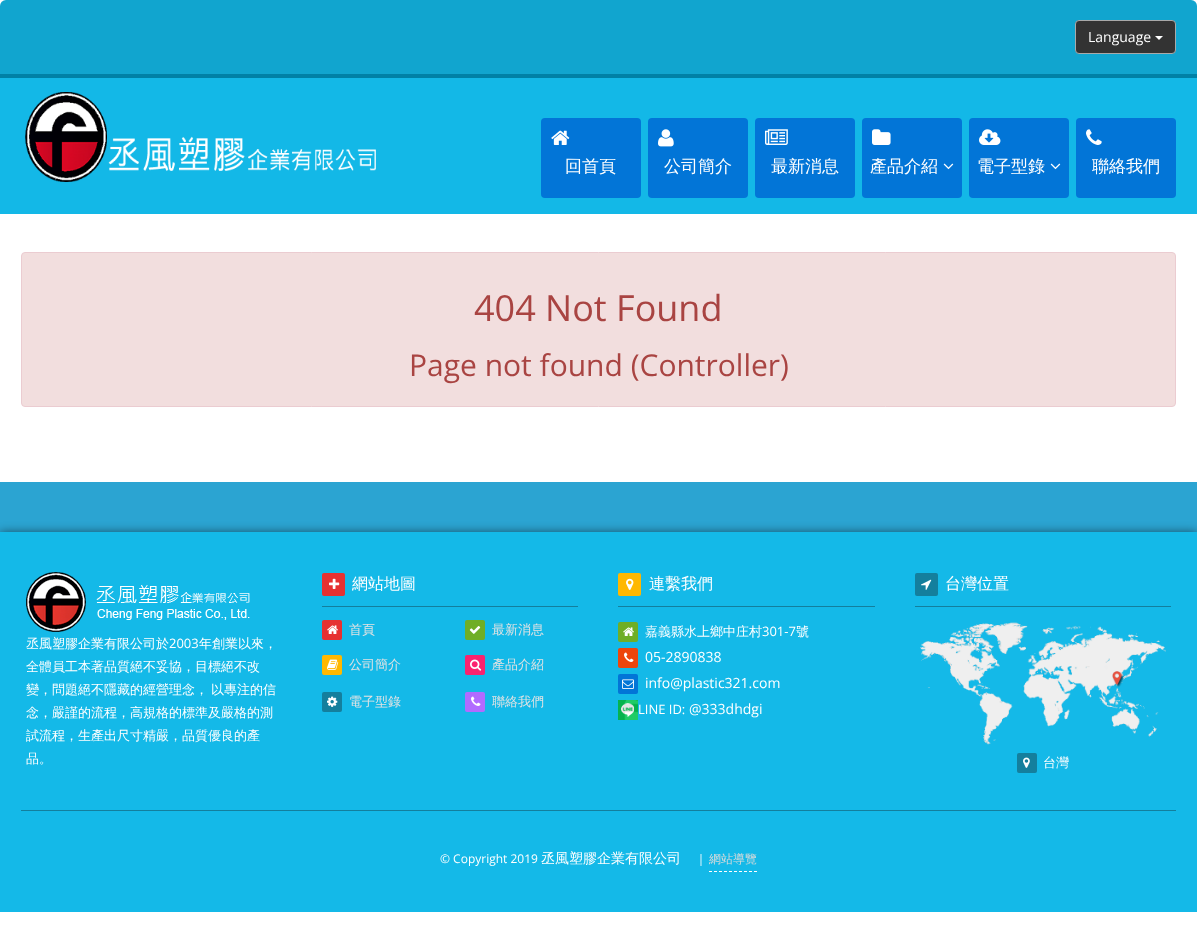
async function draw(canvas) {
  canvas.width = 1197
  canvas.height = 948
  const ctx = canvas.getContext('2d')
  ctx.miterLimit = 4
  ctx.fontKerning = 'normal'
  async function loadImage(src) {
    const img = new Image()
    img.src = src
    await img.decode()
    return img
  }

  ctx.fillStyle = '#fff'
  ctx.fillRect(0, 0, 1197, 948)
  ctx.fillStyle = '#11a5cf'
  ctx.beginPath()
  ctx.roundRect(0, 0, 1197, 78, [6, 6, 0, 0])
  ctx.fill()
  ctx.fillStyle = '#0081a6'
  ctx.fillRect(0, 74, 1197, 4)
  ctx.fillStyle = '#333'
  ctx.beginPath()
  ctx.roundRect(1075.5, 20.5, 100, 33, 3.5)
  ctx.fill()
  ctx.strokeStyle = '#a9a9a9'
  ctx.stroke()
  ctx.font = '14px Open Sans'
  ctx.fillStyle = '#fff'
  ctx.fillText('Language', 1088, 42)
  ctx.beginPath()
  ctx.moveTo(1155, 36)
  ctx.lineTo(1163, 36)
  ctx.lineTo(1159, 40)
  ctx.closePath()
  ctx.fill()
  ctx.fillStyle = '#13b8e7'
  ctx.fillRect(0, 78, 1197, 136)
  ctx.drawImage(await loadImage('image0.png'), 25, 92, 351, 90)
  ctx.fillStyle = '#0275d7'
  ctx.beginPath()
  ctx.roundRect(541, 118, 100, 80, 4)
  ctx.fill()
  ctx.drawImage(await loadImage('image1.png'), 551, 130, 19, 15)
  ctx.font = '500 17px WenQuanYi Zen Hei'
  ctx.fillStyle = '#fff'
  ctx.fillText('回首頁', 565, 172)
  ctx.fillStyle = '#0275d7'
  ctx.beginPath()
  ctx.roundRect(648, 118, 100, 80, 4)
  ctx.fill()
  ctx.drawImage(await loadImage('image2.png'), 658, 129, 16, 18)
  ctx.fillStyle = '#fff'
  ctx.fillText('公司簡介', 664, 172)
  ctx.fillStyle = '#0275d7'
  ctx.beginPath()
  ctx.roundRect(755, 118, 100, 80, 4)
  ctx.fill()
  ctx.drawImage(await loadImage('image3.png'), 765, 129, 23, 16)
  ctx.fillStyle = '#fff'
  ctx.fillText('最新消息', 771, 172)
  ctx.fillStyle = '#0275d7'
  ctx.beginPath()
  ctx.roundRect(862, 118, 100, 80, 4)
  ctx.fill()
  ctx.drawImage(await loadImage('image4.png'), 872, 129, 19, 16)
  ctx.fillStyle = '#fff'
  ctx.fillText('產品介紹', 870, 172)
  ctx.drawImage(await loadImage('image5.png'), 943, 163, 11, 7)
  ctx.fillStyle = '#0275d7'
  ctx.beginPath()
  ctx.roundRect(969, 118, 100, 80, 4)
  ctx.fill()
  ctx.drawImage(await loadImage('image6.png'), 979, 129, 22, 16)
  ctx.fillStyle = '#fff'
  ctx.fillText('電子型錄', 977, 172)
  ctx.drawImage(await loadImage('image5.png'), 1050, 163, 11, 7)
  ctx.fillStyle = '#0275d7'
  ctx.beginPath()
  ctx.roundRect(1076, 118, 100, 80, 4)
  ctx.fill()
  ctx.drawImage(await loadImage('image7.png'), 1086, 129, 16, 16)
  ctx.fillStyle = '#fff'
  ctx.fillText('聯絡我們', 1092, 172)
  ctx.fillStyle = '#f2dede'
  ctx.beginPath()
  ctx.roundRect(21.5, 252.5, 1154, 154, 3.5)
  ctx.fill()
  ctx.strokeStyle = '#ebccd1'
  ctx.stroke()
  ctx.font = '36px Open Sans'
  ctx.fillStyle = '#a94442'
  ctx.fillText('404 Not Found', 474, 321)
  ctx.font = '30px Open Sans'
  ctx.fillText('Page not found (Controller)', 409, 376)
  ctx.fillStyle = '#2ba4d2'
  ctx.fillRect(0, 482, 1197, 50)
  ctx.save()
  ctx.beginPath()
  ctx.moveTo(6, 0)
  ctx.lineTo(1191, 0)
  ctx.bezierCurveTo(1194.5, 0, 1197, 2.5, 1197, 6)
  ctx.lineTo(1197, 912)
  ctx.lineTo(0, 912)
  ctx.lineTo(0, 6)
  ctx.bezierCurveTo(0, 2.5, 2.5, 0, 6, 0)
  ctx.closePath()
  ctx.clip()
  ctx.fillStyle = '#00000080'
  ctx.filter = 'blur(5px)'
  ctx.beginPath()
  ctx.rect(0, 532, 1197, 380)
  ctx.fill()
  ctx.filter = 'none'
  ctx.restore()
  ctx.fillStyle = '#14b9e8'
  ctx.fillRect(0, 532, 1197, 380)
  ctx.drawImage(await loadImage('image8.png'), 26, 572, 60, 60)
  ctx.drawImage(await loadImage('image9.png'), 96, 585, 154, 35)
  ctx.font = '500 13px WenQuanYi Zen Hei'
  ctx.fillStyle = '#fff'
  ctx.fillText('丞風塑膠企業有限公司於', 26, 648)
  ctx.font = '13px Open Sans'
  ctx.fillText('2003', 169, 648)
  ctx.font = '500 13px WenQuanYi Zen Hei'
  ctx.fillText('年創業以來，', 199, 648)
  ctx.fillText('全體員工本著品質絕不妥協，目標絕不改', 26, 671)
  ctx.wordSpacing = '-1px'
  ctx.fillText('變，問題絕不隱藏的經營理念， 以專注的信', 26, 694)
  ctx.wordSpacing = '0px'
  ctx.fillText('念，嚴謹的流程，高規格的標準及嚴格的測', 26, 717)
  ctx.fillText('試流程，生產出尺寸精嚴，品質優良的產', 26, 740)
  ctx.fillText('品。', 26, 763)
  ctx.fillStyle = '#137f9d'
  ctx.fillRect(322, 606, 256, 1)
  ctx.fillStyle = '#e63131'
  ctx.beginPath()
  ctx.roundRect(322, 573, 23, 23, 2)
  ctx.fill()
  ctx.drawImage(await loadImage('image10.png'), 329, 578, 11, 11)
  ctx.font = '500 16px WenQuanYi Zen Hei'
  ctx.fillStyle = '#fff'
  ctx.fillText('網站地圖', 352, 589)
  ctx.fillStyle = '#e63131'
  ctx.beginPath()
  ctx.roundRect(322, 620, 20, 20, 2)
  ctx.fill()
  ctx.drawImage(await loadImage('image11.png'), 327, 625, 11, 9)
  ctx.font = '500 13px WenQuanYi Zen Hei'
  ctx.fillStyle = '#e3e3e3'
  ctx.fillText('首頁', 349, 634)
  ctx.fillStyle = '#ffb800'
  ctx.beginPath()
  ctx.roundRect(322, 655, 20, 20, 2)
  ctx.fill()
  ctx.drawImage(await loadImage('image12.png'), 327, 659, 12, 11)
  ctx.fillStyle = '#e3e3e3'
  ctx.fillText('公司簡介', 349, 669)
  ctx.fillStyle = '#6fae26'
  ctx.beginPath()
  ctx.roundRect(465, 620, 20, 20, 2)
  ctx.fill()
  ctx.drawImage(await loadImage('image13.png'), 469, 626, 12, 8)
  ctx.fillStyle = '#e3e3e3'
  ctx.fillText('最新消息', 492, 634)
  ctx.fillStyle = '#fb226f'
  ctx.beginPath()
  ctx.roundRect(465, 655, 20, 20, 2)
  ctx.fill()
  ctx.drawImage(await loadImage('image14.png'), 470, 659, 12, 12)
  ctx.fillStyle = '#e3e3e3'
  ctx.fillText('產品介紹', 492, 669)
  ctx.fillStyle = '#147f9d'
  ctx.beginPath()
  ctx.roundRect(322, 692, 20, 20, 2)
  ctx.fill()
  ctx.drawImage(await loadImage('image15.png'), 327, 696, 11, 11)
  ctx.fillStyle = '#e3e3e3'
  ctx.fillText('電子型錄', 349, 706)
  ctx.fillStyle = '#b16bff'
  ctx.beginPath()
  ctx.roundRect(465, 692, 20, 20, 2)
  ctx.fill()
  ctx.drawImage(await loadImage('image16.png'), 471, 696, 10, 10)
  ctx.fillStyle = '#e3e3e3'
  ctx.fillText('聯絡我們', 492, 706)
  ctx.fillStyle = '#137f9d'
  ctx.fillRect(618, 606, 257, 1)
  ctx.fillStyle = '#ffb800'
  ctx.beginPath()
  ctx.roundRect(618, 573, 23, 23, 2)
  ctx.fill()
  ctx.drawImage(await loadImage('image17.png'), 626, 578, 8, 12)
  ctx.font = '500 16px WenQuanYi Zen Hei'
  ctx.fillStyle = '#fff'
  ctx.fillText('連繫我們', 649, 589)
  ctx.fillStyle = '#6fae26'
  ctx.beginPath()
  ctx.roundRect(618, 622, 20, 20, 2)
  ctx.fill()
  ctx.drawImage(await loadImage('image18.png'), 623, 627, 11, 9)
  ctx.font = '500 13px WenQuanYi Zen Hei'
  ctx.fillStyle = '#fff'
  ctx.fillText('嘉義縣水上鄉中庄村', 645, 636)
  ctx.font = '13px Open Sans'
  ctx.fillText('301-7', 762, 636)
  ctx.font = '500 13px WenQuanYi Zen Hei'
  ctx.fillText('號', 796, 636)
  ctx.fillStyle = '#ed450c'
  ctx.beginPath()
  ctx.roundRect(618, 648, 20, 20, 2)
  ctx.fill()
  ctx.drawImage(await loadImage('image19.png'), 624, 652, 10, 10)
  ctx.font = '14px Open Sans'
  ctx.fillStyle = '#fff'
  ctx.fillText('05-2890838', 645, 662)
  ctx.fillStyle = '#0275d7'
  ctx.beginPath()
  ctx.roundRect(618, 674, 20, 20, 2)
  ctx.fill()
  ctx.drawImage(await loadImage('image20.png'), 622, 679, 12, 10)
  ctx.fillStyle = '#fff'
  ctx.fillText('info@plastic321.com', 645, 688)
  ctx.drawImage(await loadImage('image21.png'), 618, 700, 20, 20)
  ctx.font = '13px Open Sans'
  ctx.fillText('LINE ID:', 638, 714)
  ctx.font = '14px Open Sans'
  ctx.fillText('@333dhdgi', 689, 714)
  ctx.fillStyle = '#137f9d'
  ctx.fillRect(915, 606, 256, 1)
  ctx.fillStyle = '#147f9d'
  ctx.beginPath()
  ctx.roundRect(915, 573, 23, 23, 2)
  ctx.fill()
  ctx.drawImage(await loadImage('image22.png'), 921, 579, 11, 11)
  ctx.font = '500 16px WenQuanYi Zen Hei'
  ctx.fillStyle = '#fff'
  ctx.fillText('台灣位置', 945, 589)
  ctx.drawImage(await loadImage('image23.png'), 920, 622, 246, 123)
  ctx.fillStyle = '#147f9d'
  ctx.beginPath()
  ctx.roundRect(1017, 753, 20, 20, 2)
  ctx.fill()
  ctx.drawImage(await loadImage('image24.png'), 1023, 757, 7, 11)
  ctx.font = '500 13px WenQuanYi Zen Hei'
  ctx.fillStyle = '#fff'
  ctx.fillText('台灣', 1043, 767)
  ctx.fillStyle = '#137f9d'
  ctx.fillRect(21, 810, 1155, 1)
  ctx.font = '12px Open Sans'
  ctx.fillStyle = '#fff'
  ctx.fillText('© Copyright 2019', 440, 863)
  ctx.font = '500 14px WenQuanYi Zen Hei'
  ctx.fillText('丞風塑膠企業有限公司', 541, 863)
  ctx.font = '500 12px WenQuanYi Zen Hei'
  ctx.fillText('｜', 695, 863)
  ctx.beginPath()
  ctx.moveTo(709, 871.5)
  ctx.lineTo(757, 871.5)
  ctx.strokeStyle = '#fff'
  ctx.setLineDash([3, 2])
  ctx.stroke()
  ctx.fillStyle = '#dadada'
  ctx.fillText('網站導覽', 709, 863)
}

draw(document.querySelector('canvas'))
